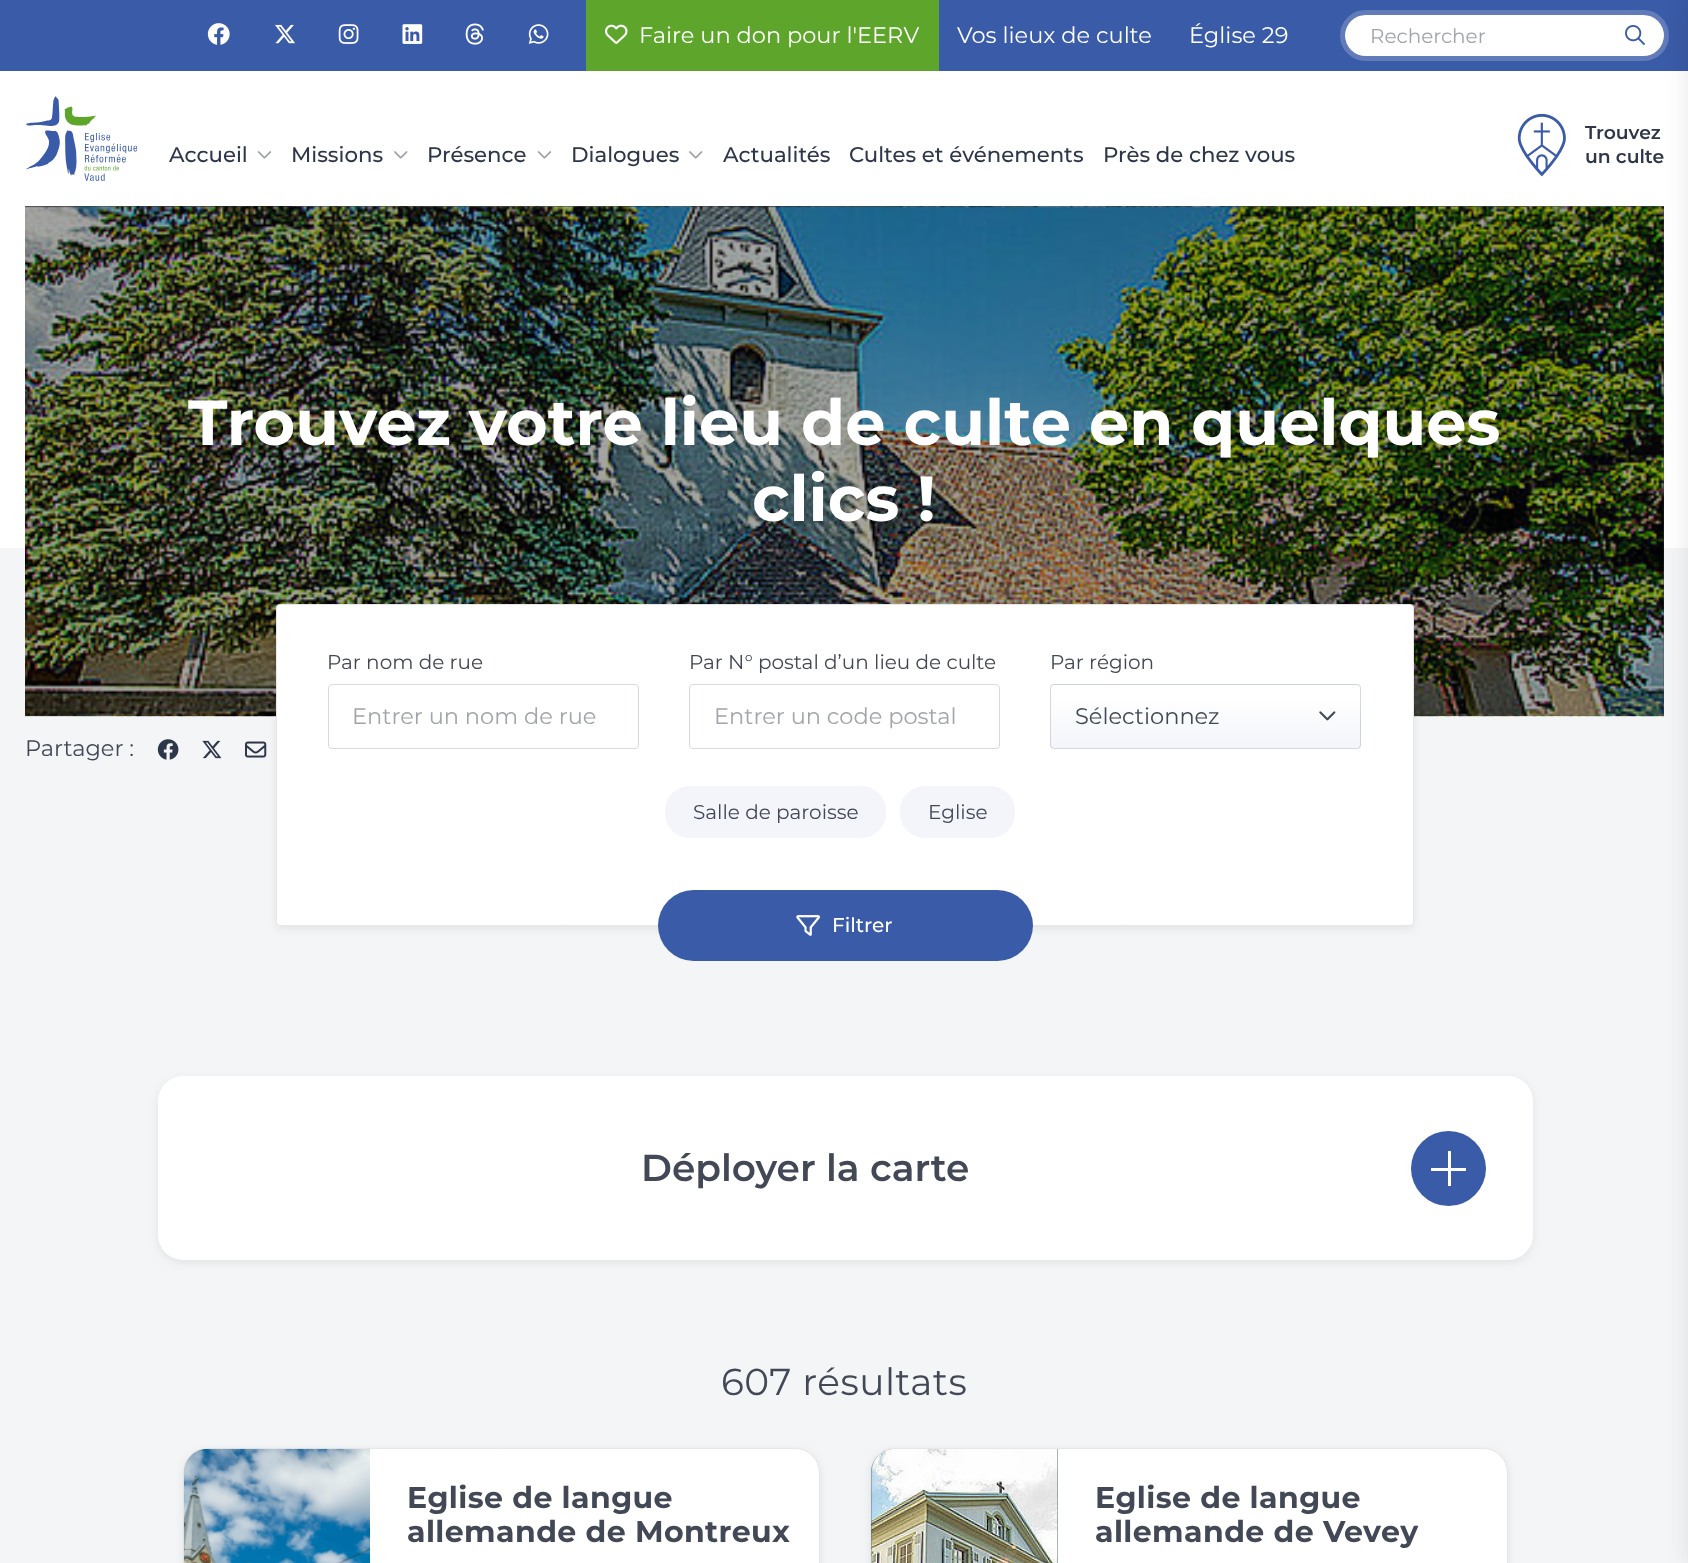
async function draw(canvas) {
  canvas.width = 1688
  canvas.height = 1563
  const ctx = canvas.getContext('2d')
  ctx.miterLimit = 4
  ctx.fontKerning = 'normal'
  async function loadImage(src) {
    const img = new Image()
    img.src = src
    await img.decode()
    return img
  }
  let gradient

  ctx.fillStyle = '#fff'
  ctx.fillRect(0, 0, 1688, 1563)
  ctx.fillStyle = '#3a5ba7'
  ctx.fillRect(0, 0, 1688, 71)
  ctx.drawImage(await loadImage('image0.png'), 207, 23, 23, 22)
  ctx.drawImage(await loadImage('image1.png'), 275, 24, 20, 20)
  ctx.drawImage(await loadImage('image2.png'), 338, 24, 21, 20)
  ctx.drawImage(await loadImage('image3.png'), 402, 24, 21, 20)
  ctx.drawImage(await loadImage('image4.png'), 465, 23, 19, 22)
  ctx.drawImage(await loadImage('image5.png'), 528, 24, 21, 20)
  ctx.fillStyle = '#5ea62b'
  ctx.fillRect(586, 0, 353, 71)
  ctx.drawImage(await loadImage('image6.png'), 605, 24, 23, 20)
  ctx.font = '22.5px Montserrat'
  ctx.fillStyle = '#fff'
  ctx.fillText('Faire un don pour l\'EERV', 639, 43)
  ctx.fillText('Vos lieux de culte', 957, 43)
  ctx.fillText('Église 29', 1189, 43)
  ctx.beginPath()
  ctx.roundRect(1342.5, 12.5, 324, 46, 23)
  ctx.strokeStyle = '#617cb9'
  ctx.lineWidth = 5
  ctx.stroke()
  ctx.beginPath()
  ctx.roundRect(1345, 15, 319, 41, 20.5)
  ctx.fill()
  ctx.font = '20px Montserrat'
  ctx.fillStyle = '#a1a4aa'
  ctx.fillText('Rechercher', 1370, 43)
  ctx.drawImage(await loadImage('image7.png'), 1625, 25, 20, 20)
  ctx.fillStyle = '#f4f5f6'
  ctx.fillRect(0, 548, 1688, 1015)
  ctx.fillStyle = '#394252'
  ctx.fillRect(25, 206, 1639, 510)
  ctx.drawImage(await loadImage('image12.png'), 25, 206, 1639, 511)
  ctx.fillStyle = '#0000001a'
  ctx.filter = 'blur(12.5px)'
  ctx.beginPath()
  ctx.rect(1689, 0, 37, 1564)
  ctx.fill()
  ctx.filter = 'none'
  ctx.drawImage(await loadImage('image8.png'), 26, 96, 112, 85)
  ctx.font = '500 21.25px Montserrat'
  ctx.fillStyle = '#2e3649'
  ctx.fillText('Accueil', 169, 162)
  ctx.drawImage(await loadImage('image9.png'), 257, 151, 15, 8)
  ctx.fillText('Missions', 291, 162)
  ctx.drawImage(await loadImage('image10.png'), 394, 151, 14, 8)
  ctx.fillText('Présence', 427, 162)
  ctx.drawImage(await loadImage('image9.png'), 537, 151, 15, 8)
  ctx.fillText('Dialogues', 571, 162)
  ctx.drawImage(await loadImage('image10.png'), 689, 151, 14, 8)
  ctx.fillText('Actualités', 723, 162)
  ctx.fillText('Cultes et événements', 849, 162)
  ctx.fillText('Près de chez vous', 1103, 162)
  ctx.drawImage(await loadImage('image11.png'), 1517, 113, 49, 64)
  ctx.font = '600 18.75px Montserrat'
  ctx.fillText('Trouvez', 1585, 139)
  ctx.fillText('un culte', 1585, 163)
  ctx.font = 'bold 63.75px Montserrat'
  ctx.fillStyle = '#fff'
  ctx.fillText('Trouvez votre lieu de culte en quelques', 188, 445)
  ctx.fillText('clics !', 752, 521)
  ctx.font = '22.5px Montserrat'
  ctx.fillStyle = '#424855'
  ctx.fillText('Partager :', 25, 756)
  ctx.drawImage(await loadImage('image13.png'), 157, 739, 22, 21)
  ctx.drawImage(await loadImage('image14.png'), 202, 740, 20, 19)
  ctx.drawImage(await loadImage('image15.png'), 245, 741, 22, 17)
  ctx.fillStyle = '#00000012'
  ctx.filter = 'blur(5px)'
  ctx.beginPath()
  ctx.roundRect(276, 606, 1138, 323, 4)
  ctx.fill()
  ctx.filter = 'none'
  ctx.fillStyle = '#fff'
  ctx.beginPath()
  ctx.roundRect(276.5, 604.5, 1137, 321, 3.5)
  ctx.fill()
  ctx.strokeStyle = '#e7e7e7'
  ctx.lineWidth = 1
  ctx.stroke()
  ctx.font = '20px Montserrat'
  ctx.fillStyle = '#424855'
  ctx.fillText('Par nom de rue', 327, 669)
  ctx.beginPath()
  ctx.roundRect(328.5, 684.5, 310, 64, 3.5)
  ctx.strokeStyle = '#d5d9df'
  ctx.stroke()
  ctx.font = '22.5px Montserrat'
  ctx.fillStyle = '#a1a4aa'
  ctx.fillText('Entrer un nom de rue', 352, 724)
  ctx.font = '20px Montserrat'
  ctx.fillStyle = '#424855'
  ctx.fillText('Par N° postal d’un lieu de culte', 689, 669)
  ctx.beginPath()
  ctx.roundRect(689.5, 684.5, 310, 64, 3.5)
  ctx.stroke()
  ctx.font = '22.5px Montserrat'
  ctx.fillStyle = '#a1a4aa'
  ctx.fillText('Entrer un code postal', 714, 724)
  ctx.font = '20px Montserrat'
  ctx.fillStyle = '#424855'
  ctx.fillText('Par région', 1050, 669)
  ctx.save()
  ctx.beginPath()
  ctx.roundRect(1050, 684, 311, 65, 4)
  ctx.clip()
  gradient = ctx.createLinearGradient(1206, 623, 1206, 685)
  gradient.addColorStop(0.19, '#fff')
  gradient.addColorStop(1, '#f3f5fa')
  ctx.fillStyle = gradient
  ctx.fillRect(1050, 684, 311, 1)
  gradient = ctx.createLinearGradient(1206, 685, 1206, 748)
  gradient.addColorStop(0.19, '#fff')
  gradient.addColorStop(1, '#f3f5fa')
  ctx.fillStyle = gradient
  ctx.fillRect(1050, 685, 311, 63)
  ctx.restore()
  ctx.beginPath()
  ctx.roundRect(1050.5, 684.5, 310, 64, 3.5)
  ctx.strokeStyle = '#57667e40'
  ctx.stroke()
  ctx.font = '22.5px Montserrat'
  ctx.fillText('Sélectionnez', 1075, 724)
  ctx.drawImage(await loadImage('image16.png'), 1319, 711, 17, 10)
  ctx.fillStyle = '#f3f5fa'
  ctx.beginPath()
  ctx.roundRect(666.5, 787.5, 218, 49, 23.5)
  ctx.fill()
  ctx.strokeStyle = '#f3f5fa'
  ctx.lineWidth = 3
  ctx.stroke()
  ctx.font = '20px Montserrat'
  ctx.fillStyle = '#424855'
  ctx.fillText('Salle de paroisse', 693, 819)
  ctx.fillStyle = '#f3f5fa'
  ctx.beginPath()
  ctx.roundRect(901.5, 787.5, 112, 49, 23.5)
  ctx.fill()
  ctx.stroke()
  ctx.fillStyle = '#424855'
  ctx.fillText('Eglise', 928, 819)
  ctx.fillStyle = '#3a5ba7'
  ctx.beginPath()
  ctx.roundRect(658, 890, 375, 71, 35.5)
  ctx.fill()
  ctx.drawImage(await loadImage('image17.png'), 796, 915, 24, 21)
  ctx.font = '500 20px Montserrat'
  ctx.fillStyle = '#fff'
  ctx.fillText('Filtrer', 832, 932)
  ctx.fillStyle = '#00000012'
  ctx.filter = 'blur(5px)'
  ctx.beginPath()
  ctx.roundRect(158, 1079, 1375, 184, 25)
  ctx.fill()
  ctx.filter = 'none'
  ctx.fillStyle = '#fff'
  ctx.beginPath()
  ctx.roundRect(158, 1076, 1375, 184, 25)
  ctx.fill()
  ctx.font = '600 37.5px Montserrat'
  ctx.fillStyle = '#424855'
  ctx.fillText('Déployer la carte', 641, 1181)
  ctx.fillStyle = '#3a5ba7'
  ctx.beginPath()
  ctx.arc(1448.5, 1168.5, 37.5, 0, 2 * Math.PI)
  ctx.fill()
  ctx.fillStyle = '#fff'
  ctx.fillRect(1431, 1168, 35, 3)
  ctx.fillRect(1448, 1151, 3, 35)
  ctx.letterSpacing = '0.5px'
  ctx.font = '37.5px Montserrat'
  ctx.fillStyle = '#424855'
  ctx.fillText('607 résultats', 721, 1395)
  ctx.fillStyle = '#00000012'
  ctx.filter = 'blur(5px)'
  ctx.beginPath()
  ctx.roundRect(183, 1450, 637, 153, 25)
  ctx.fill()
  ctx.filter = 'none'
  ctx.fillStyle = '#fff'
  ctx.beginPath()
  ctx.roundRect(183.5, 1448.5, 636, 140, 24.5)
  ctx.fill()
  ctx.strokeStyle = '#e7e7e7'
  ctx.lineWidth = 1
  ctx.stroke()
  ctx.drawImage(await loadImage('image18.png'), 183, 1448, 187, 115)
  ctx.letterSpacing = '0.4px'
  ctx.font = 'bold 30px Montserrat'
  ctx.fillStyle = '#424855'
  ctx.fillText('Eglise de langue', 407, 1508)
  ctx.fillText('allemande de Montreux', 407, 1542)
  ctx.fillStyle = '#00000012'
  ctx.filter = 'blur(5px)'
  ctx.beginPath()
  ctx.roundRect(870, 1450, 638, 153, 25)
  ctx.fill()
  ctx.filter = 'none'
  ctx.fillStyle = '#fff'
  ctx.beginPath()
  ctx.roundRect(870.5, 1448.5, 637, 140, 24.5)
  ctx.fill()
  ctx.stroke()
  ctx.fillStyle = '#57667e'
  ctx.beginPath()
  ctx.moveTo(895, 1449)
  ctx.lineTo(1058, 1449)
  ctx.lineTo(1058, 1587)
  ctx.lineTo(895, 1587)
  ctx.bezierCurveTo(881.5, 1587, 871, 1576.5, 871, 1563)
  ctx.lineTo(871, 1473)
  ctx.bezierCurveTo(871, 1459.5, 881.5, 1449, 895, 1449)
  ctx.closePath()
  ctx.fill()
  ctx.drawImage(await loadImage('image19.png'), 871, 1449, 187, 114)
  ctx.fillStyle = '#424855'
  ctx.fillText('Eglise de langue', 1095, 1508)
  ctx.fillText('allemande de Vevey', 1095, 1542)
}

draw(document.querySelector('canvas'))
